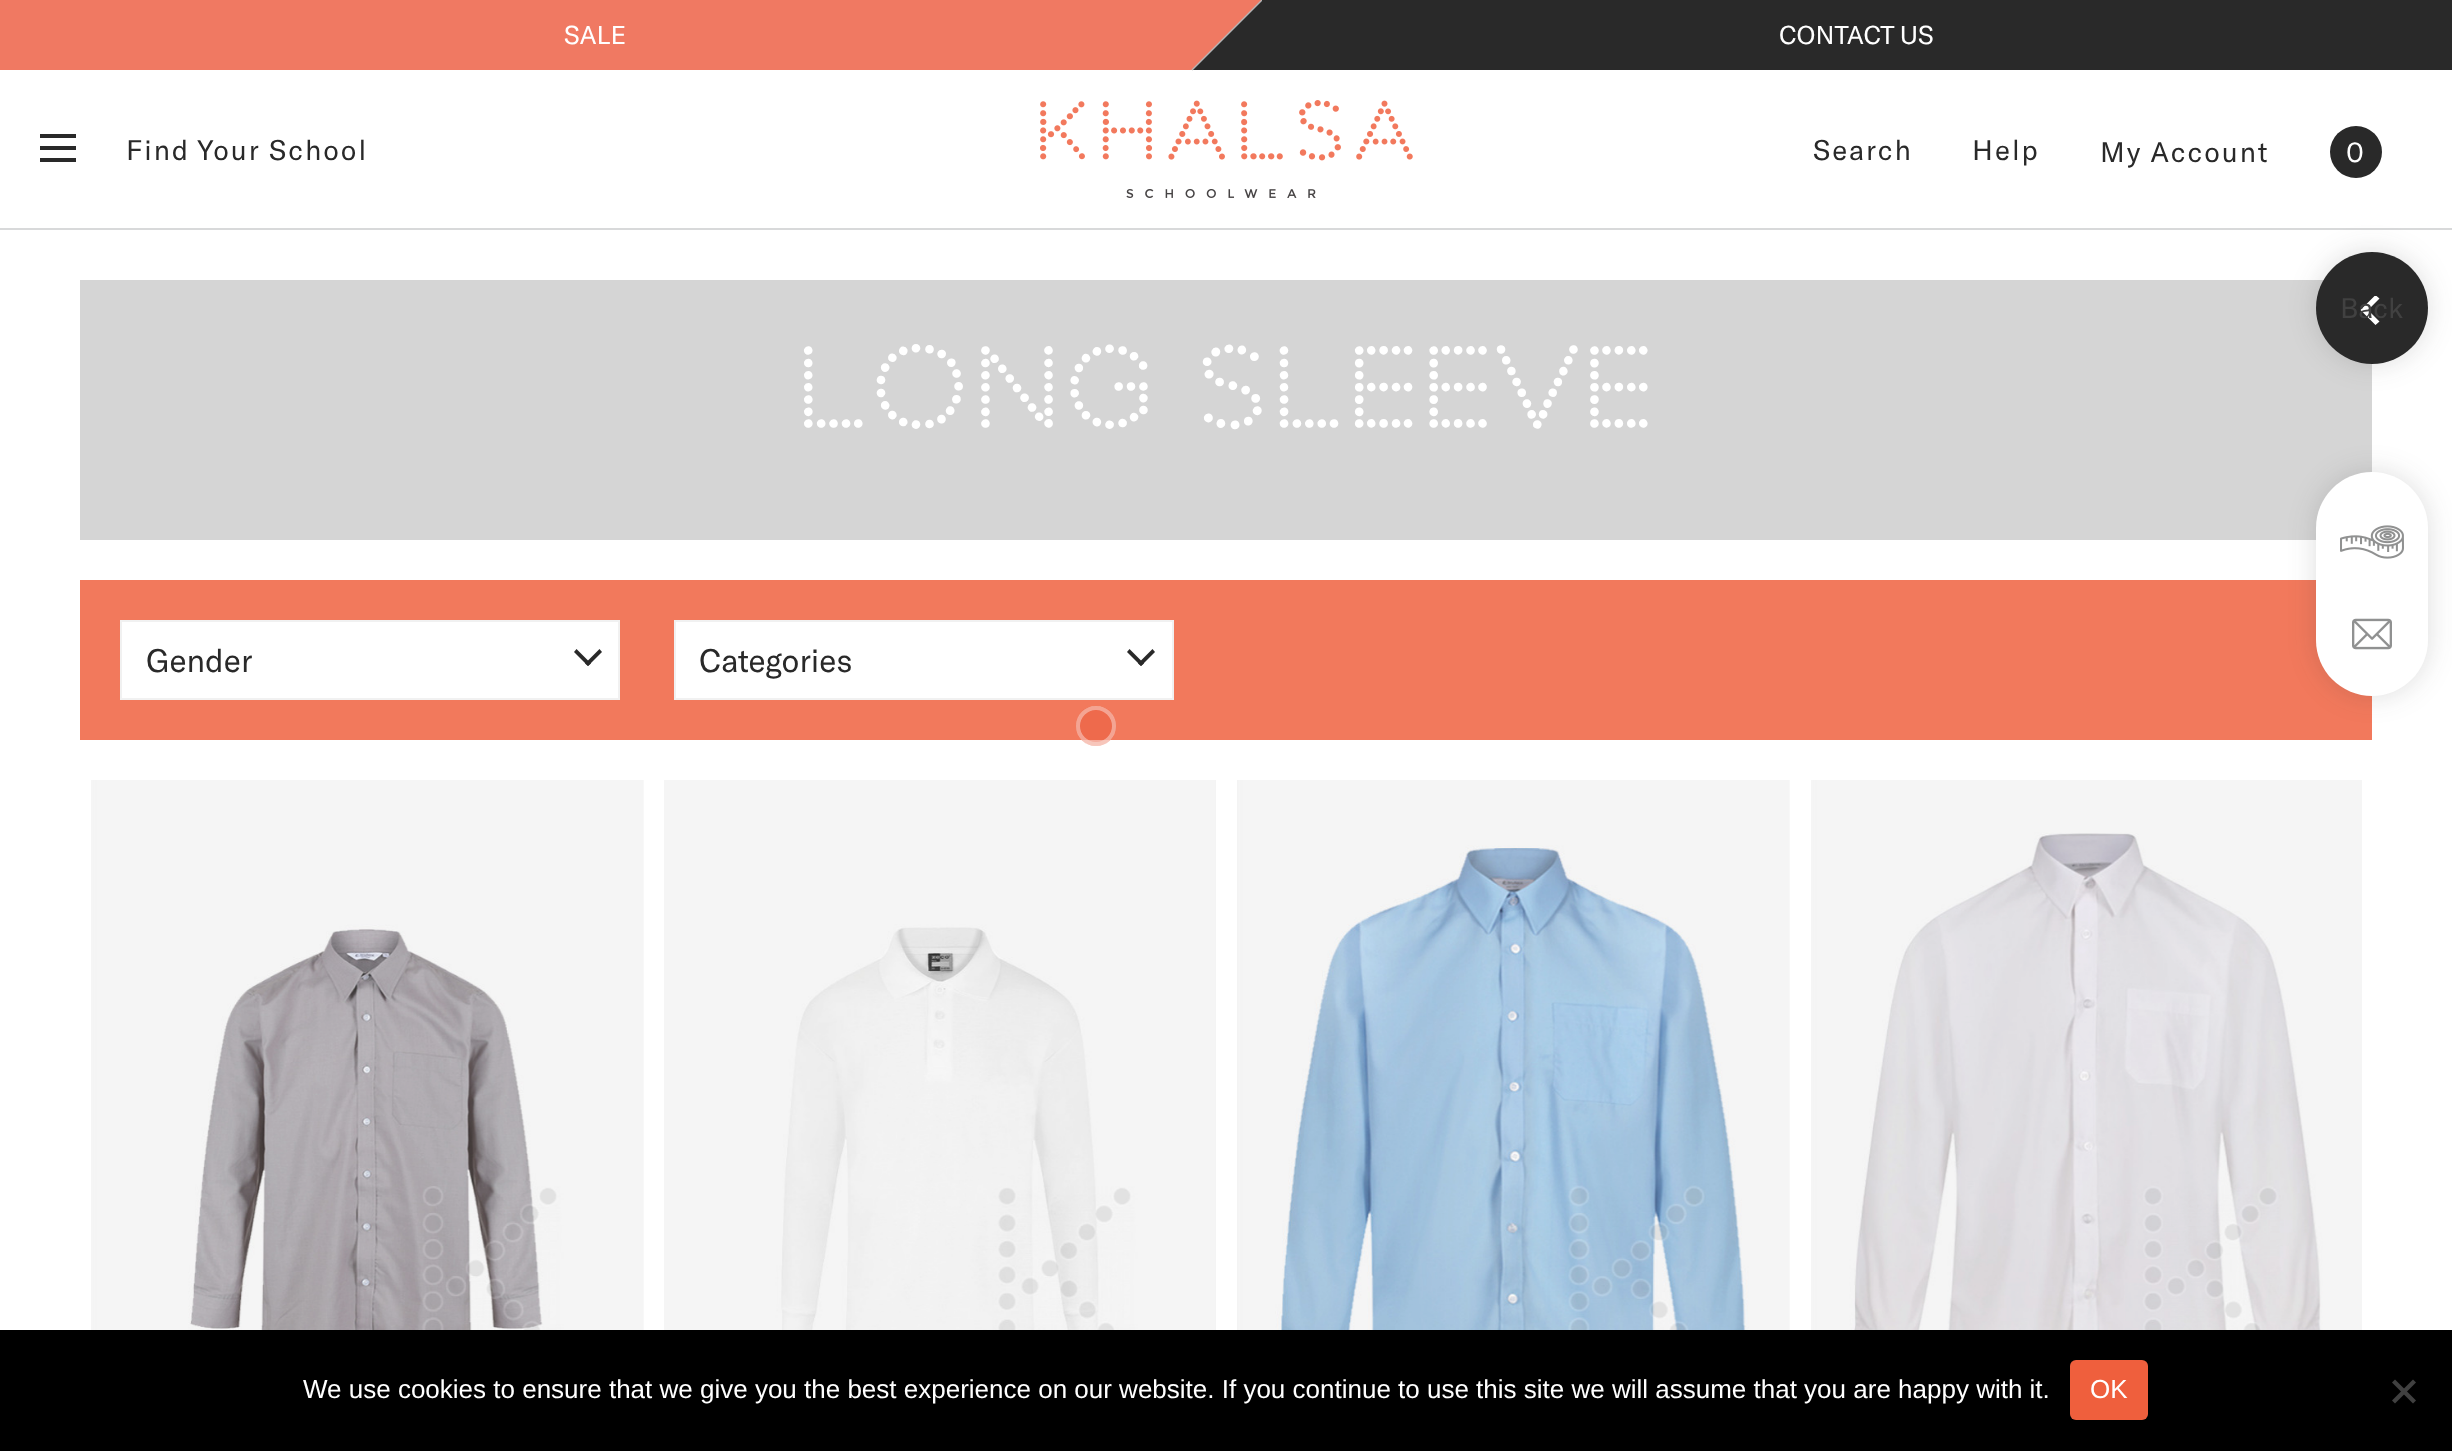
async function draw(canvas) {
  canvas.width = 2452
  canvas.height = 1451
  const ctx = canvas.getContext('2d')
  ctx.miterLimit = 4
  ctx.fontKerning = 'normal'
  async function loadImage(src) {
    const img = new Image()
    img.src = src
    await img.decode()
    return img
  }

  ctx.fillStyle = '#fff'
  ctx.fillRect(0, 0, 2452, 1451)
  ctx.fillStyle = '#f07962'
  ctx.fillRect(0, 0, 1192, 70)
  ctx.font = '25.5px GT America'
  ctx.fillStyle = '#fff'
  ctx.fillText('SALE', 564, 44)
  ctx.fillStyle = '#f07962'
  ctx.beginPath()
  ctx.moveTo(1262, 0)
  ctx.lineTo(1192, 70)
  ctx.lineTo(1192, 0)
  ctx.closePath()
  ctx.fill()
  ctx.fillStyle = '#292929'
  ctx.beginPath()
  ctx.moveTo(1192, 70)
  ctx.lineTo(1262, 0)
  ctx.lineTo(1262, 70)
  ctx.closePath()
  ctx.fill()
  ctx.beginPath()
  ctx.moveTo(1262, 0)
  ctx.lineTo(1192, 70)
  ctx.strokeStyle = '#b5b5b5'
  ctx.lineWidth = 1.4
  ctx.stroke()
  ctx.fillRect(1262, 0, 1190, 70)
  ctx.fillStyle = '#fff'
  ctx.fillText('CONTACT US', 1779, 44)
  ctx.fillStyle = '#d8d9da'
  ctx.fillRect(0, 228, 2452, 2)
  ctx.fillStyle = '#292929'
  ctx.fillRect(40, 134, 36, 4)
  ctx.fillRect(40, 146, 36, 4)
  ctx.fillRect(40, 158, 36, 4)
  ctx.letterSpacing = '2px'
  ctx.font = '28px GT America'
  ctx.fillText('Find Your School', 126, 160)
  ctx.drawImage(await loadImage('image0.png'), 1040, 100, 373, 98)
  ctx.fillText('Search', 1813, 160)
  ctx.fillText('Help', 1972, 160)
  ctx.fillText('My Account', 2100, 162)
  ctx.beginPath()
  ctx.arc(2356, 152, 26, 0, 2 * Math.PI)
  ctx.fill()
  ctx.fillStyle = '#fff'
  ctx.fillText('0', 2346, 162)
  ctx.fillStyle = '#d5d5d5'
  ctx.fillRect(80, 280, 2292, 260)
  ctx.font = '110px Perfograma'
  ctx.fillStyle = '#fff'
  ctx.fillText('Long Sleeve', 795, 428)
  ctx.fillStyle = '#f2795c'
  ctx.fillRect(80, 580, 2292, 160)
  ctx.fillStyle = '#fff'
  ctx.beginPath()
  ctx.rect(121, 621, 498, 78)
  ctx.fill()
  ctx.strokeStyle = '#f1f1f1'
  ctx.lineWidth = 2
  ctx.stroke()
  ctx.letterSpacing = '0px'
  ctx.font = '32px GT America'
  ctx.fillStyle = '#292929'
  ctx.fillText('Gender', 146, 672)
  ctx.beginPath()
  ctx.moveTo(599.5, 649)
  ctx.lineTo(602, 652)
  ctx.lineTo(588, 666)
  ctx.lineTo(585, 663.5)
  ctx.closePath()
  ctx.fill()
  ctx.beginPath()
  ctx.moveTo(576.5, 649)
  ctx.lineTo(591, 663.5)
  ctx.lineTo(588, 666)
  ctx.lineTo(574, 652)
  ctx.closePath()
  ctx.fill()
  ctx.fillStyle = '#fff'
  ctx.beginPath()
  ctx.rect(675, 621, 498, 78)
  ctx.fill()
  ctx.stroke()
  ctx.fillStyle = '#292929'
  ctx.fillText('Categories', 699, 672)
  ctx.beginPath()
  ctx.moveTo(1152.5, 649)
  ctx.lineTo(1155, 652)
  ctx.lineTo(1141, 666)
  ctx.lineTo(1138, 663.5)
  ctx.closePath()
  ctx.fill()
  ctx.beginPath()
  ctx.moveTo(1129.5, 649)
  ctx.lineTo(1144, 663.5)
  ctx.lineTo(1141, 666)
  ctx.lineTo(1127, 652)
  ctx.closePath()
  ctx.fill()
  ctx.drawImage(await loadImage('image1.png'), 91, 780, 553, 550)
  ctx.drawImage(await loadImage('image2.png'), 664, 780, 552, 550)
  ctx.drawImage(await loadImage('image3.png'), 1237, 780, 553, 550)
  ctx.drawImage(await loadImage('image4.png'), 1811, 780, 551, 550)
  ctx.fillStyle = '#29292929'
  ctx.filter = 'blur(14px)'
  ctx.beginPath()
  ctx.roundRect(2316, 252, 112, 112, 56)
  ctx.fill()
  ctx.filter = 'none'
  ctx.fillStyle = '#292929'
  ctx.beginPath()
  ctx.arc(2372, 308, 56, 0, 2 * Math.PI)
  ctx.fill()
  ctx.fillStyle = '#fff'
  ctx.beginPath()
  ctx.moveTo(2360.5, 310)
  ctx.lineTo(2374.5, 296)
  ctx.lineTo(2376.5, 296)
  ctx.lineTo(2379.5, 298.5)
  ctx.lineTo(2368, 310)
  ctx.lineTo(2379.5, 321.5)
  ctx.lineTo(2375.5, 325)
  ctx.closePath()
  ctx.fill()
  ctx.font = '28px GT America'
  ctx.fillStyle = '#414141'
  ctx.fillText('Back', 2340, 318)
  ctx.fillStyle = '#ef5f3d29'
  ctx.beginPath()
  ctx.arc(1096, 726, 20, 0, 2 * Math.PI)
  ctx.fill()
  ctx.beginPath()
  ctx.arc(1096, 726, 18, 0, 2 * Math.PI)
  ctx.strokeStyle = '#ffffff29'
  ctx.lineWidth = 4
  ctx.stroke()
  ctx.beginPath()
  ctx.arc(1096, 726, 20, 0, 2 * Math.PI)
  ctx.fill()
  ctx.beginPath()
  ctx.arc(1096, 726, 18, 0, 2 * Math.PI)
  ctx.stroke()
  ctx.beginPath()
  ctx.arc(1096, 726, 20, 0, 2 * Math.PI)
  ctx.fill()
  ctx.beginPath()
  ctx.arc(1096, 726, 18, 0, 2 * Math.PI)
  ctx.stroke()
  ctx.beginPath()
  ctx.arc(1096, 726, 20, 0, 2 * Math.PI)
  ctx.fill()
  ctx.beginPath()
  ctx.arc(1096, 726, 18, 0, 2 * Math.PI)
  ctx.stroke()
  ctx.fillStyle = '#29292929'
  ctx.filter = 'blur(14px)'
  ctx.beginPath()
  ctx.roundRect(2316, 472, 112, 224, 56)
  ctx.fill()
  ctx.filter = 'none'
  ctx.fillStyle = '#fff'
  ctx.beginPath()
  ctx.roundRect(2316, 472, 112, 224, 56)
  ctx.fill()
  ctx.drawImage(await loadImage('image5.png'), 2340, 525, 64, 34)
  ctx.drawImage(await loadImage('image6.png'), 2352, 618, 40, 32)
  ctx.fillStyle = '#000'
  ctx.fillRect(0, 1330, 2452, 121)
  ctx.font = '26px Liberation Sans'
  ctx.fillStyle = '#fff'
  ctx.fillText('We use cookies to ensure that we give you the best experience on our website. If you continue to use this site we will assume that you are happy with it.', 303, 1398)
  ctx.fillStyle = '#ef5f3d'
  ctx.beginPath()
  ctx.roundRect(2070, 1360, 78, 60, 6)
  ctx.fill()
  ctx.fillStyle = '#fff'
  ctx.fillText('OK', 2090, 1398)
  ctx.fillStyle = '#404040'
  ctx.beginPath()
  ctx.moveTo(2413, 1379.5)
  ctx.lineTo(2416, 1382.5)
  ctx.lineTo(2395, 1403.5)
  ctx.lineTo(2392, 1400.5)
  ctx.closePath()
  ctx.fill()
  ctx.beginPath()
  ctx.moveTo(2392, 1382.5)
  ctx.lineTo(2395, 1379.5)
  ctx.lineTo(2416, 1400.5)
  ctx.lineTo(2413, 1403.5)
  ctx.closePath()
  ctx.fill()
}

draw(document.querySelector('canvas'))
